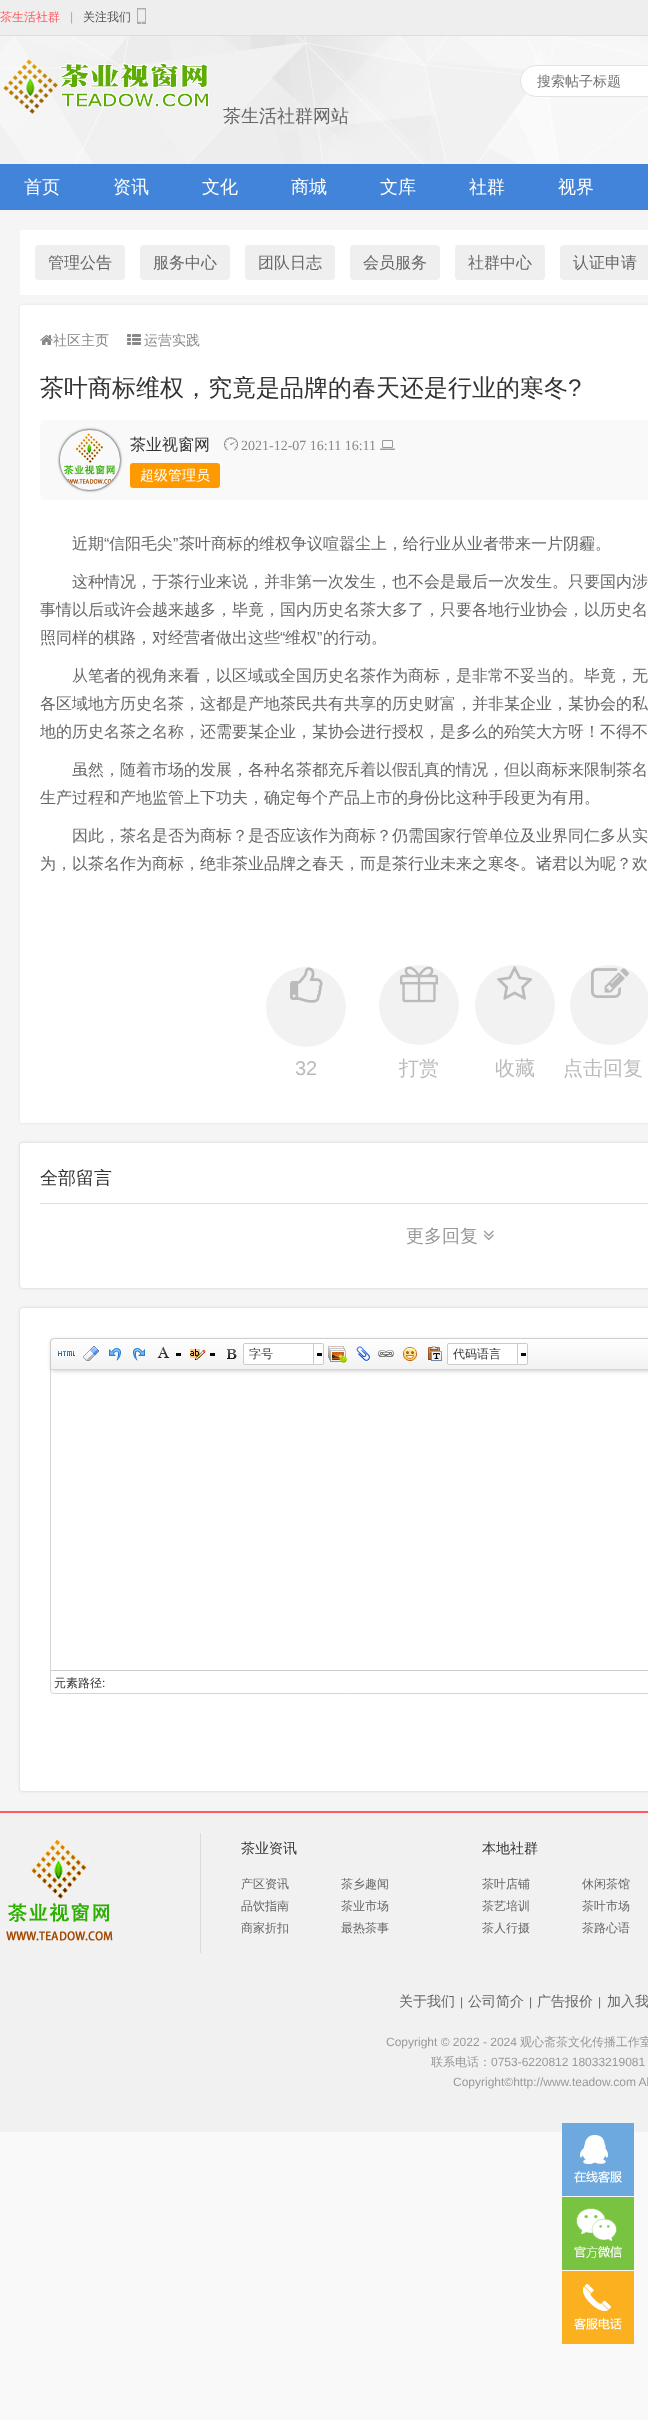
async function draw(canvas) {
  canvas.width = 648
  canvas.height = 2420
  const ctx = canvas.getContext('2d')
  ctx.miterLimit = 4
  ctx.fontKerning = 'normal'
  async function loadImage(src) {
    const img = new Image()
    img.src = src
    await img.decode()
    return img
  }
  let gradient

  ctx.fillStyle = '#f9f9f9'
  ctx.fillRect(0, 0, 648, 2420)
  ctx.fillStyle = '#eee'
  ctx.fillRect(0, 0, 648, 35)
  ctx.fillStyle = '#ddd'
  ctx.fillRect(0, 35, 648, 1)
  ctx.font = '500 12px WenQuanYi Zen Hei'
  ctx.fillStyle = '#ff5a60'
  ctx.fillText('茶生活社群', 0, 21)
  ctx.font = '12px Liberation Sans'
  ctx.fillStyle = '#aaa'
  ctx.fillText('|', 70, 21)
  ctx.font = '500 12px WenQuanYi Zen Hei'
  ctx.fillStyle = '#555'
  ctx.fillText('关注我们', 83, 21)
  ctx.drawImage(await loadImage('image0.png'), 137, 8, 9, 16)
  ctx.drawImage(await loadImage('image1.png'), 0, 36, 648, 128)
  ctx.fillStyle = '#fff'
  ctx.beginPath()
  ctx.roundRect(520.5, 65.5, 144, 31, 15.5)
  ctx.fill()
  ctx.strokeStyle = '#e3e3e3'
  ctx.stroke()
  ctx.font = '500 14px WenQuanYi Zen Hei'
  ctx.fillStyle = '#757575'
  ctx.fillText('搜索帖子标题', 537, 86)
  ctx.drawImage(await loadImage('image2.png'), 3, 59, 206, 55)
  ctx.font = '500 18px WenQuanYi Zen Hei'
  ctx.fillStyle = '#666'
  ctx.fillText('茶生活社群网站', 223, 122)
  ctx.fillStyle = '#4284d9'
  ctx.fillRect(0, 164, 648, 46)
  ctx.fillStyle = '#fff'
  ctx.fillText('首页', 24, 193)
  ctx.fillText('资讯', 113, 193)
  ctx.fillText('文化', 202, 193)
  ctx.fillText('商城', 291, 193)
  ctx.fillText('文库', 380, 193)
  ctx.fillText('社群', 469, 193)
  ctx.fillText('视界', 558, 193)
  ctx.fillStyle = '#f5f5f5'
  ctx.fillRect(0, 210, 648, 1601)
  ctx.fillStyle = '#fff'
  ctx.fillRect(20, 230, 628, 65)
  ctx.fillStyle = '#efefef'
  ctx.beginPath()
  ctx.roundRect(35, 245, 90, 35, 4)
  ctx.fill()
  ctx.font = '500 16px WenQuanYi Zen Hei'
  ctx.fillStyle = '#666'
  ctx.fillText('管理公告', 48, 268)
  ctx.fillStyle = '#efefef'
  ctx.beginPath()
  ctx.roundRect(140, 245, 90, 35, 4)
  ctx.fill()
  ctx.fillStyle = '#666'
  ctx.fillText('服务中心', 153, 268)
  ctx.fillStyle = '#efefef'
  ctx.beginPath()
  ctx.roundRect(245, 245, 90, 35, 4)
  ctx.fill()
  ctx.fillStyle = '#666'
  ctx.fillText('团队日志', 258, 268)
  ctx.fillStyle = '#efefef'
  ctx.beginPath()
  ctx.roundRect(350, 245, 90, 35, 4)
  ctx.fill()
  ctx.fillStyle = '#666'
  ctx.fillText('会员服务', 363, 268)
  ctx.fillStyle = '#efefef'
  ctx.beginPath()
  ctx.roundRect(455, 245, 90, 35, 4)
  ctx.fill()
  ctx.fillStyle = '#666'
  ctx.fillText('社群中心', 468, 268)
  ctx.fillStyle = '#efefef'
  ctx.beginPath()
  ctx.roundRect(560, 245, 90, 35, 4)
  ctx.fill()
  ctx.fillStyle = '#666'
  ctx.fillText('认证申请', 573, 268)
  ctx.fillStyle = '#ddd'
  ctx.filter = 'blur(1px)'
  ctx.beginPath()
  ctx.roundRect(20, 305, 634, 818, 3)
  ctx.fill()
  ctx.filter = 'none'
  ctx.fillStyle = '#fff'
  ctx.beginPath()
  ctx.roundRect(20, 305, 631, 818, 3)
  ctx.fill()
  ctx.drawImage(await loadImage('image3.png'), 40, 335, 13, 10)
  ctx.font = '500 14px WenQuanYi Zen Hei'
  ctx.fillStyle = '#888'
  ctx.fillText('社区主页', 53, 345)
  ctx.drawImage(await loadImage('image4.png'), 127, 334, 14, 11)
  ctx.fillText('运营实践', 144, 345)
  ctx.font = '500 24px WenQuanYi Zen Hei'
  ctx.fillStyle = '#333'
  ctx.fillText('茶叶商标维权，究竟是品牌的春天还是行业的寒冬', 40, 396)
  ctx.font = '24px Liberation Sans'
  ctx.fillText('?', 568, 396)
  ctx.fillStyle = '#f9f9f9'
  ctx.beginPath()
  ctx.roundRect(40, 420, 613, 80, 5)
  ctx.fill()
  ctx.save()
  ctx.beginPath()
  ctx.moveTo(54, 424)
  ctx.lineTo(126, 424)
  ctx.lineTo(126, 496)
  ctx.lineTo(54, 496)
  ctx.closePath()
  ctx.moveTo(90, 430)
  ctx.bezierCurveTo(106.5, 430, 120, 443.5, 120, 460)
  ctx.bezierCurveTo(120, 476.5, 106.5, 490, 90, 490)
  ctx.bezierCurveTo(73.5, 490, 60, 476.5, 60, 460)
  ctx.bezierCurveTo(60, 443.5, 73.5, 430, 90, 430)
  ctx.closePath()
  ctx.clip('evenodd')
  ctx.fillStyle = '#000'
  ctx.filter = 'blur(1.5px)'
  ctx.beginPath()
  ctx.roundRect(60, 430, 60, 60, 30)
  ctx.fill()
  ctx.filter = 'none'
  ctx.restore()
  ctx.drawImage(await loadImage('image5.png'), 64, 433, 51, 51)
  ctx.font = '500 16px WenQuanYi Zen Hei'
  ctx.fillStyle = '#333'
  ctx.fillText('茶业视窗网', 130, 450)
  ctx.drawImage(await loadImage('image6.png'), 224, 437, 14, 14)
  ctx.font = '14px Liberation Serif'
  ctx.fillStyle = '#888'
  ctx.fillText('2021-12-07 16:11 16:11', 241, 450)
  ctx.drawImage(await loadImage('image7.png'), 380, 440, 15, 10)
  ctx.fillStyle = '#f90'
  ctx.beginPath()
  ctx.roundRect(130, 463, 90, 25, 3)
  ctx.fill()
  ctx.font = '500 14px WenQuanYi Zen Hei'
  ctx.fillStyle = '#fff'
  ctx.fillText('超级管理员', 140, 480)
  ctx.font = '500 16px WenQuanYi Zen Hei'
  ctx.fillStyle = '#666'
  ctx.fillText('近期', 72, 549)
  ctx.font = '16px Liberation Sans'
  ctx.fillText('“', 104, 549)
  ctx.font = '500 16px WenQuanYi Zen Hei'
  ctx.fillText('信阳毛尖', 109, 549)
  ctx.font = '16px Liberation Sans'
  ctx.fillText('”', 173, 549)
  ctx.font = '500 16px WenQuanYi Zen Hei'
  ctx.fillText('茶叶商标的维权争议喧嚣尘上，给行业从业者带来一片阴霾。', 179, 549)
  ctx.fillText('这种情况，于茶行业来说，并非第一次发生，也不会是最后一次发生。只要国内涉', 72, 587)
  ctx.fillText('事情以后或许会越来越多，毕竟，国内历史名茶大多了，只要各地行业协会，以历史名', 40, 615)
  ctx.fillText('照同样的棋路，对经营者做出这些', 40, 643)
  ctx.font = '16px Liberation Sans'
  ctx.fillText('“', 280, 643)
  ctx.font = '500 16px WenQuanYi Zen Hei'
  ctx.fillText('维权', 285, 643)
  ctx.font = '16px Liberation Sans'
  ctx.fillText('”', 317, 643)
  ctx.font = '500 16px WenQuanYi Zen Hei'
  ctx.fillText('的行动。', 323, 643)
  ctx.fillText('从笔者的视角来看，以区域或全国历史名茶作为商标，是非常不妥当的。毕竟，无', 72, 681)
  ctx.fillText('各区域地方历史名茶，这都是产地茶民共有共享的历史财富，并非某企业，某协会的私', 40, 709)
  ctx.fillText('地的历史名茶之名称，还需要某企业，某协会进行授权，是多么的殆笑大方呀！不得不', 40, 737)
  ctx.fillText('虽然，随着市场的发展，各种名茶都充斥着以假乱真的情况，但以商标来限制茶名', 72, 775)
  ctx.fillText('生产过程和产地监管上下功夫，确定每个产品上市的身份比这种手段更为有用。', 40, 803)
  ctx.fillText('因此，茶名是否为商标？是否应该作为商标？仍需国家行管单位及业界同仁多从实', 72, 841)
  ctx.fillText('为，以茶名作为商标，绝非茶业品牌之春天，而是茶行业未来之寒冬。诸君以为呢？欢', 40, 869)
  ctx.fillStyle = '#f2f2f2'
  ctx.beginPath()
  ctx.arc(306, 1007, 40, 0, 2 * Math.PI)
  ctx.fill()
  ctx.drawImage(await loadImage('image8.png'), 290, 967, 33, 36)
  ctx.font = '20px Liberation Sans'
  ctx.fillStyle = '#bbb'
  ctx.fillText('32', 295, 1075)
  ctx.fillStyle = '#f2f2f2'
  ctx.beginPath()
  ctx.arc(419, 1005, 40, 0, 2 * Math.PI)
  ctx.fill()
  ctx.drawImage(await loadImage('image9.png'), 400, 966, 38, 37)
  ctx.font = '500 20px WenQuanYi Zen Hei'
  ctx.fillStyle = '#bbb'
  ctx.fillText('打赏', 399, 1075)
  ctx.fillStyle = '#f2f2f2'
  ctx.beginPath()
  ctx.arc(515, 1005, 40, 0, 2 * Math.PI)
  ctx.fill()
  ctx.drawImage(await loadImage('image10.png'), 497, 966, 36, 34)
  ctx.fillStyle = '#bbb'
  ctx.fillText('收藏', 495, 1075)
  ctx.fillStyle = '#f2f2f2'
  ctx.beginPath()
  ctx.arc(610, 1005, 40, 0, 2 * Math.PI)
  ctx.fill()
  ctx.drawImage(await loadImage('image11.png'), 591, 968, 38, 30)
  ctx.fillStyle = '#bbb'
  ctx.fillText('点击回复', 563, 1075)
  ctx.fillStyle = '#ccc'
  ctx.filter = 'blur(1.5px)'
  ctx.beginPath()
  ctx.roundRect(20, 1143, 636, 145, 3)
  ctx.fill()
  ctx.filter = 'none'
  ctx.fillStyle = '#fff'
  ctx.beginPath()
  ctx.roundRect(20, 1143, 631, 145, 3)
  ctx.fill()
  ctx.fillStyle = '#ddd'
  ctx.fillRect(40, 1203, 608, 1)
  ctx.font = '500 18px WenQuanYi Zen Hei'
  ctx.fillStyle = '#333'
  ctx.fillText('全部留言', 40, 1184)
  ctx.fillStyle = '#999'
  ctx.fillText('更多回复', 406, 1242)
  ctx.drawImage(await loadImage('image12.png'), 483, 1230, 11, 11)
  ctx.fillStyle = '#ccc'
  ctx.filter = 'blur(1.5px)'
  ctx.beginPath()
  ctx.roundRect(20, 1308, 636, 483, 3)
  ctx.fill()
  ctx.filter = 'none'
  ctx.fillStyle = '#fff'
  ctx.beginPath()
  ctx.roundRect(20, 1308, 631, 483, 3)
  ctx.fill()
  ctx.beginPath()
  ctx.roundRect(50.5, 1338.5, 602, 355, 3.5)
  ctx.strokeStyle = '#d4d4d4'
  ctx.stroke()
  ctx.fillStyle = '#cccccc99'
  ctx.filter = 'blur(2px)'
  ctx.beginPath()
  ctx.roundRect(51, 1340, 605, 31, 2)
  ctx.fill()
  ctx.filter = 'none'
  ctx.fillStyle = '#00000012'
  ctx.filter = 'blur(2px)'
  ctx.beginPath()
  ctx.roundRect(51, 1340, 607, 31, 4)
  ctx.fill()
  ctx.filter = 'none'
  gradient = ctx.createLinearGradient(451, 1339, 451, 1369)
  gradient.addColorStop(0, '#fff')
  gradient.addColorStop(1, '#f2f2f2')
  ctx.fillStyle = gradient
  ctx.beginPath()
  ctx.moveTo(55, 1339)
  ctx.lineTo(648, 1339)
  ctx.bezierCurveTo(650, 1339, 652, 1341, 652, 1343)
  ctx.lineTo(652, 1369)
  ctx.lineTo(51, 1369)
  ctx.lineTo(51, 1343)
  ctx.bezierCurveTo(51, 1341, 53, 1339, 55, 1339)
  ctx.closePath()
  ctx.fill()
  ctx.fillStyle = '#d4d4d4'
  ctx.fillRect(51, 1369, 597, 1)
  ctx.drawImage(await loadImage('image13.png'), 58, 1351, 17, 5)
  ctx.drawImage(await loadImage('image14.png'), 83, 1346, 16, 15)
  ctx.drawImage(await loadImage('image15.png'), 109, 1348, 12, 13)
  ctx.drawImage(await loadImage('image16.png'), 133, 1348, 12, 13)
  ctx.drawImage(await loadImage('image17.png'), 157, 1347, 13, 11)
  ctx.fillStyle = '#080809'
  ctx.fillRect(176, 1353, 5, 3)
  ctx.drawImage(await loadImage('image18.png'), 190, 1349, 16, 11)
  ctx.fillRect(210, 1353, 5, 3)
  ctx.drawImage(await loadImage('image19.png'), 227, 1349, 10, 10)
  ctx.fillStyle = '#fff'
  ctx.beginPath()
  ctx.roundRect(243.5, 1343.5, 80, 21, 1.5)
  ctx.fill()
  ctx.strokeStyle = '#ccc'
  ctx.stroke()
  ctx.font = '500 12px WenQuanYi Zen Hei'
  ctx.fillStyle = '#333'
  ctx.fillText('字号', 249, 1358)
  ctx.fillStyle = '#080809'
  ctx.fillRect(317, 1353, 5, 3)
  ctx.fillStyle = '#ccc'
  ctx.fillRect(313, 1344, 1, 20)
  ctx.drawImage(await loadImage('image20.png'), 328, 1346, 19, 17)
  ctx.drawImage(await loadImage('image21.png'), 356, 1346, 14, 16)
  ctx.drawImage(await loadImage('image22.png'), 378, 1350, 16, 7)
  ctx.drawImage(await loadImage('image23.png'), 403, 1347, 14, 14)
  ctx.drawImage(await loadImage('image24.png'), 428, 1346, 14, 15)
  ctx.fillStyle = '#fff'
  ctx.beginPath()
  ctx.roundRect(447.5, 1343.5, 80, 21, 1.5)
  ctx.fill()
  ctx.stroke()
  ctx.fillStyle = '#333'
  ctx.fillText('代码语言', 453, 1358)
  ctx.fillStyle = '#080809'
  ctx.fillRect(521, 1353, 5, 3)
  ctx.fillStyle = '#ccc'
  ctx.fillRect(517, 1344, 1, 20)
  ctx.fillRect(51, 1670, 597, 1)
  ctx.fillStyle = '#333'
  ctx.fillText('元素路径', 54, 1687)
  ctx.font = '12px Liberation Sans'
  ctx.fillText(':', 102, 1687)
  ctx.fillStyle = '#f1f1f1'
  ctx.fillRect(0, 1813, 648, 319)
  ctx.fillStyle = '#ff5a60'
  ctx.fillRect(0, 1811, 648, 2)
  ctx.fillStyle = '#dbdbdb'
  ctx.fillRect(200, 1833, 1, 120)
  ctx.drawImage(await loadImage('image25.png'), 6, 1839, 107, 102)
  ctx.font = '500 14px WenQuanYi Zen Hei'
  ctx.fillStyle = '#333'
  ctx.fillText('茶业资讯', 241, 1853)
  ctx.font = '500 12px WenQuanYi Zen Hei'
  ctx.fillStyle = '#666'
  ctx.fillText('产区资讯', 241, 1888)
  ctx.fillText('茶乡趣闻', 341, 1888)
  ctx.fillText('品饮指南', 241, 1910)
  ctx.fillText('茶业市场', 341, 1910)
  ctx.fillText('商家折扣', 241, 1932)
  ctx.fillText('最热茶事', 341, 1932)
  ctx.font = '500 14px WenQuanYi Zen Hei'
  ctx.fillStyle = '#333'
  ctx.fillText('本地社群', 482, 1853)
  ctx.font = '500 12px WenQuanYi Zen Hei'
  ctx.fillStyle = '#666'
  ctx.fillText('茶叶店铺', 482, 1888)
  ctx.fillText('休闲茶馆', 582, 1888)
  ctx.fillText('茶艺培训', 482, 1910)
  ctx.fillText('茶叶市场', 582, 1910)
  ctx.fillText('茶人行摄', 482, 1932)
  ctx.fillText('茶路心语', 582, 1932)
  ctx.font = '500 14px WenQuanYi Zen Hei'
  ctx.fillText('关于我们', 399, 2006)
  ctx.font = '12px Liberation Sans'
  ctx.fillText('|', 460, 2006)
  ctx.font = '500 14px WenQuanYi Zen Hei'
  ctx.fillText('公司简介', 468, 2006)
  ctx.font = '12px Liberation Sans'
  ctx.fillText('|', 529, 2006)
  ctx.font = '500 14px WenQuanYi Zen Hei'
  ctx.fillText('广告报价', 537, 2006)
  ctx.font = '12px Liberation Sans'
  ctx.fillText('|', 598, 2006)
  ctx.font = '500 14px WenQuanYi Zen Hei'
  ctx.fillText('加入我', 607, 2006)
  ctx.font = '12px Liberation Sans'
  ctx.fillStyle = '#999'
  ctx.fillText('Copyright © 2022 - 2024', 386, 2046)
  ctx.font = '500 12px WenQuanYi Zen Hei'
  ctx.fillText('观心斋茶文化传播工作室', 520, 2046)
  ctx.fillText('联系电话：', 431, 2066)
  ctx.font = '12px Liberation Sans'
  ctx.fillText('0753-6220812 18033219081', 491, 2066)
  ctx.fillText('Copyright©http://www.teadow.com Al', 453, 2086)
  ctx.fillStyle = '#6da9de'
  ctx.fillRect(562, 2123, 72, 73)
  ctx.drawImage(await loadImage('image26.png'), 574, 2135, 48, 48)
  ctx.fillStyle = '#78c340'
  ctx.fillRect(562, 2197, 72, 73)
  ctx.drawImage(await loadImage('image27.png'), 574, 2208, 48, 50)
  ctx.fillStyle = '#fbb01f'
  ctx.fillRect(562, 2271, 72, 73)
  ctx.drawImage(await loadImage('image28.png'), 574, 2284, 48, 46)
}

draw(document.querySelector('canvas'))
